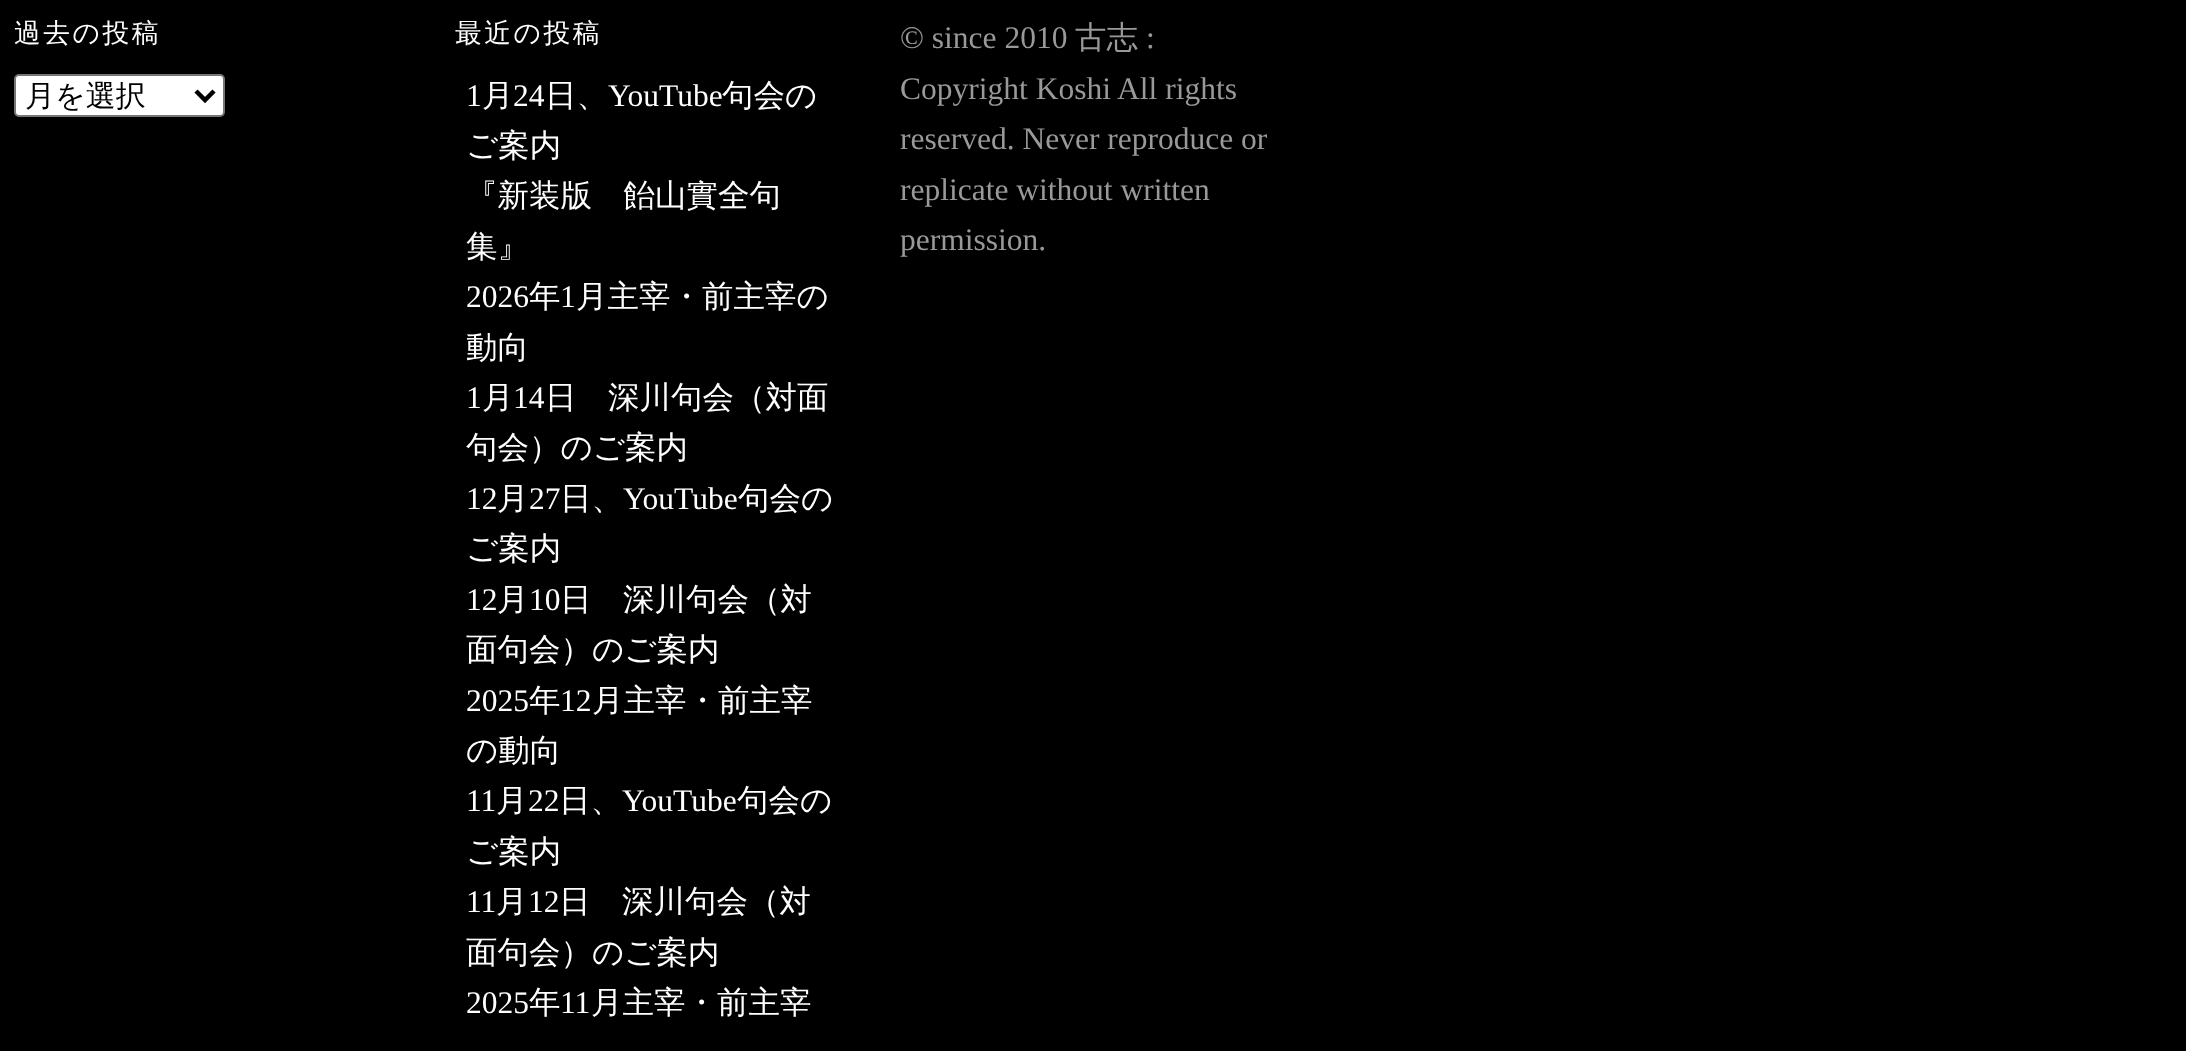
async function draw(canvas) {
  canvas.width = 2186
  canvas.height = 1051
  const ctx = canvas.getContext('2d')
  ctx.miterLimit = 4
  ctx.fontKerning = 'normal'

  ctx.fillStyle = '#000'
  ctx.fillRect(0, 0, 2186, 1051)
  ctx.letterSpacing = '2.5px'
  ctx.font = '500 26.75px WenQuanYi Zen Hei'
  ctx.fillStyle = '#fff'
  ctx.fillText('過去の投稿', 14, 42)
  ctx.beginPath()
  ctx.roundRect(15, 75, 209, 41, 4)
  ctx.fill()
  ctx.strokeStyle = '#767676'
  ctx.lineWidth = 2
  ctx.stroke()
  ctx.beginPath()
  ctx.moveTo(196, 91)
  ctx.lineTo(205, 100)
  ctx.lineTo(214, 91)
  ctx.strokeStyle = '#000'
  ctx.lineWidth = 4.5
  ctx.stroke()
  ctx.letterSpacing = '0px'
  ctx.font = '500 30px WenQuanYi Zen Hei'
  ctx.fillStyle = '#000'
  ctx.fillText('月を選択', 25, 106)
  ctx.letterSpacing = '2.5px'
  ctx.font = '500 26.75px WenQuanYi Zen Hei'
  ctx.fillStyle = '#fff'
  ctx.fillText('最近の投稿', 455, 42)
  ctx.letterSpacing = '0px'
  ctx.font = '31.5px Liberation Serif'
  ctx.fillText('1', 466, 106)
  ctx.font = '500 31.5px WenQuanYi Zen Hei'
  ctx.fillText('月', 482, 106)
  ctx.font = '31.5px Liberation Serif'
  ctx.fillText('24', 513, 106)
  ctx.font = '500 31.5px WenQuanYi Zen Hei'
  ctx.fillText('日、', 545, 106)
  ctx.font = '31.5px Liberation Serif'
  ctx.fillText('YouTube', 608, 106)
  ctx.font = '500 31.5px WenQuanYi Zen Hei'
  ctx.fillText('句会の', 722, 106)
  ctx.fillText('ご案内', 466, 156)
  ctx.fillText('『新装版　飴山實全句', 466, 206)
  ctx.fillText('集』', 466, 257)
  ctx.font = '31.5px Liberation Serif'
  ctx.fillText('2026', 466, 307)
  ctx.font = '500 31.5px WenQuanYi Zen Hei'
  ctx.fillText('年', 529, 307)
  ctx.font = '31.5px Liberation Serif'
  ctx.fillText('1', 560, 307)
  ctx.font = '500 31.5px WenQuanYi Zen Hei'
  ctx.fillText('月主宰・前主宰の', 576, 307)
  ctx.fillText('動向', 466, 358)
  ctx.font = '31.5px Liberation Serif'
  ctx.fillText('1', 466, 408)
  ctx.font = '500 31.5px WenQuanYi Zen Hei'
  ctx.fillText('月', 482, 408)
  ctx.font = '31.5px Liberation Serif'
  ctx.fillText('14', 513, 408)
  ctx.font = '500 31.5px WenQuanYi Zen Hei'
  ctx.fillText('日　深川句会（対面', 545, 408)
  ctx.fillText('句会）のご案内', 466, 458)
  ctx.font = '31.5px Liberation Serif'
  ctx.fillText('12', 466, 509)
  ctx.font = '500 31.5px WenQuanYi Zen Hei'
  ctx.fillText('月', 497, 509)
  ctx.font = '31.5px Liberation Serif'
  ctx.fillText('27', 529, 509)
  ctx.font = '500 31.5px WenQuanYi Zen Hei'
  ctx.fillText('日、', 560, 509)
  ctx.font = '31.5px Liberation Serif'
  ctx.fillText('YouTube', 623, 509)
  ctx.font = '500 31.5px WenQuanYi Zen Hei'
  ctx.fillText('句会の', 738, 509)
  ctx.fillText('ご案内', 466, 559)
  ctx.font = '31.5px Liberation Serif'
  ctx.fillText('12', 466, 610)
  ctx.font = '500 31.5px WenQuanYi Zen Hei'
  ctx.fillText('月', 497, 610)
  ctx.font = '31.5px Liberation Serif'
  ctx.fillText('10', 529, 610)
  ctx.font = '500 31.5px WenQuanYi Zen Hei'
  ctx.fillText('日　深川句会（対', 560, 610)
  ctx.fillText('面句会）のご案内', 466, 660)
  ctx.font = '31.5px Liberation Serif'
  ctx.fillText('2025', 466, 711)
  ctx.font = '500 31.5px WenQuanYi Zen Hei'
  ctx.fillText('年', 529, 711)
  ctx.font = '31.5px Liberation Serif'
  ctx.fillText('12', 560, 711)
  ctx.font = '500 31.5px WenQuanYi Zen Hei'
  ctx.fillText('月主宰・前主宰', 592, 711)
  ctx.fillText('の動向', 466, 761)
  ctx.font = '31.5px Liberation Serif'
  ctx.fillText('11', 466, 811)
  ctx.font = '500 31.5px WenQuanYi Zen Hei'
  ctx.fillText('月', 496, 811)
  ctx.font = '31.5px Liberation Serif'
  ctx.fillText('22', 528, 811)
  ctx.font = '500 31.5px WenQuanYi Zen Hei'
  ctx.fillText('日、', 559, 811)
  ctx.font = '31.5px Liberation Serif'
  ctx.fillText('YouTube', 622, 811)
  ctx.font = '500 31.5px WenQuanYi Zen Hei'
  ctx.fillText('句会の', 737, 811)
  ctx.fillText('ご案内', 466, 862)
  ctx.font = '31.5px Liberation Serif'
  ctx.fillText('11', 466, 912)
  ctx.font = '500 31.5px WenQuanYi Zen Hei'
  ctx.fillText('月', 496, 912)
  ctx.font = '31.5px Liberation Serif'
  ctx.fillText('12', 528, 912)
  ctx.font = '500 31.5px WenQuanYi Zen Hei'
  ctx.fillText('日　深川句会（対', 559, 912)
  ctx.fillText('面句会）のご案内', 466, 963)
  ctx.font = '31.5px Liberation Serif'
  ctx.fillText('2025', 466, 1013)
  ctx.font = '500 31.5px WenQuanYi Zen Hei'
  ctx.fillText('年', 529, 1013)
  ctx.font = '31.5px Liberation Serif'
  ctx.fillText('11', 560, 1013)
  ctx.font = '500 31.5px WenQuanYi Zen Hei'
  ctx.fillText('月主宰・前主宰', 591, 1013)
  ctx.font = '31.5px Liberation Serif'
  ctx.fillStyle = '#999'
  ctx.fillText('© since 2010', 900, 48)
  ctx.font = '500 31.5px WenQuanYi Zen Hei'
  ctx.fillText('古志', 1075, 48)
  ctx.font = '31.5px Liberation Serif'
  ctx.fillText(':', 1146, 48)
  ctx.fillText('Copyright Koshi All rights', 900, 99)
  ctx.fillText('reserved. Never reproduce or', 900, 149)
  ctx.fillText('replicate without written', 900, 200)
  ctx.fillText('permission.', 900, 250)
}

draw(document.querySelector('canvas'))
